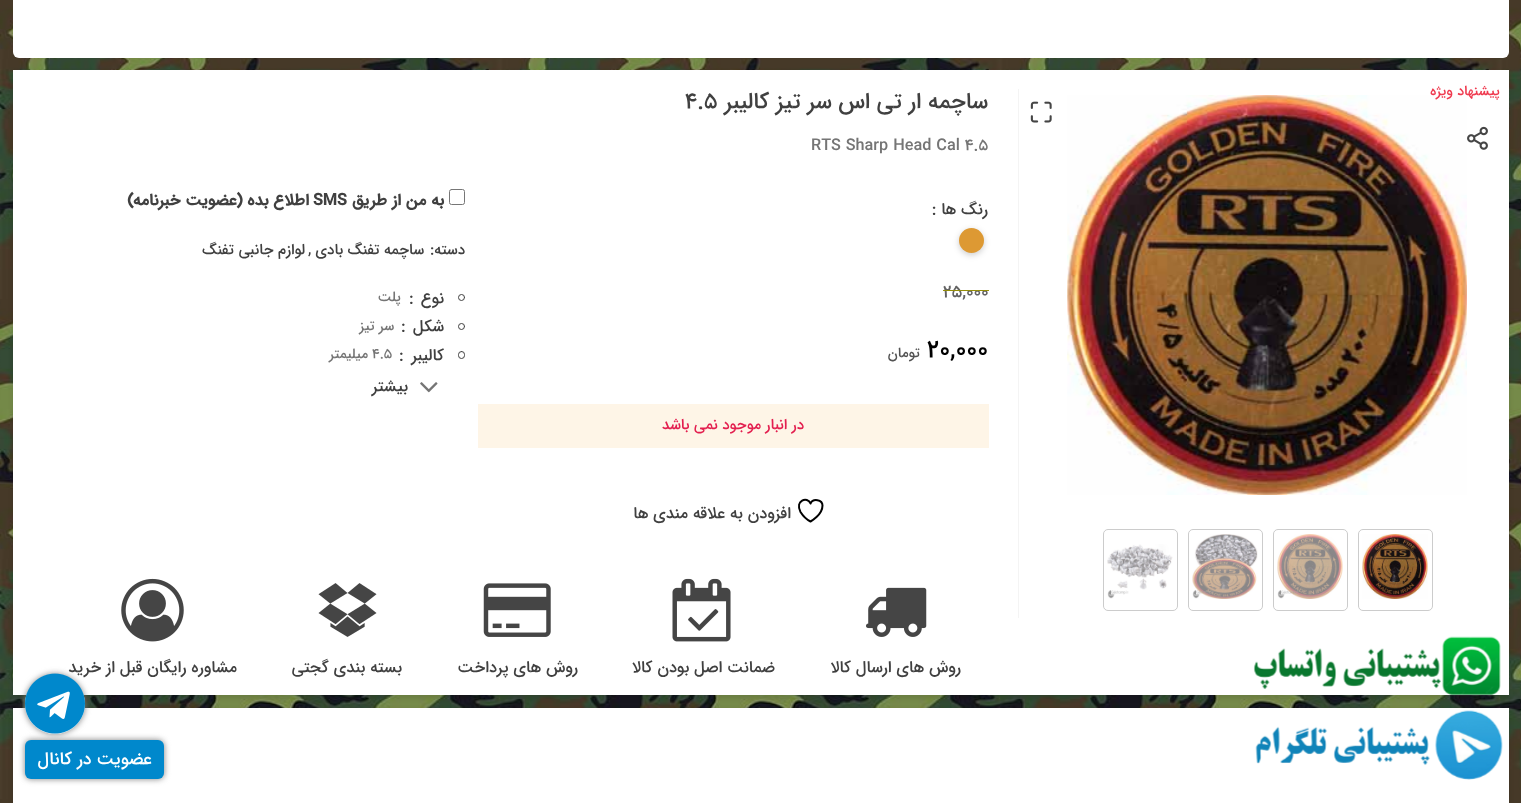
async function draw(canvas) {
  canvas.width = 1521
  canvas.height = 803
  const ctx = canvas.getContext('2d')
  ctx.miterLimit = 4
  ctx.fontKerning = 'normal'
  async function loadImage(src) {
    const img = new Image()
    img.src = src
    await img.decode()
    return img
  }

  ctx.fillStyle = '#fff'
  ctx.fillRect(0, 0, 1521, 803)
  ctx.drawImage(await loadImage('image0.png'), 0, 0, 1521, 803)
  ctx.beginPath()
  ctx.roundRect(13, -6, 1496, 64, 6)
  ctx.fill()
  ctx.fillStyle = '#0000001a'
  ctx.filter = 'blur(2.5px)'
  ctx.beginPath()
  ctx.rect(13, 73, 1496, 625)
  ctx.fill()
  ctx.filter = 'none'
  ctx.fillStyle = '#fff'
  ctx.fillRect(13, 70, 1496, 625)
  ctx.drawImage(await loadImage('image2.png'), 1067, 95, 400, 400)
  ctx.direction = 'rtl'
  ctx.font = '500 14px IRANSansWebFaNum'
  ctx.fillStyle = '#ef394e'
  ctx.fillText('پیشنهاد ویژه', 1500, 95)
  ctx.drawImage(await loadImage('image1.png'), 1467, 126, 21, 24)
  ctx.fillStyle = '#f4f4f4'
  ctx.fillRect(1018, 89, 1, 529)
  ctx.drawImage(await loadImage('image3.png'), 1030, 101, 22, 22)
  ctx.beginPath()
  ctx.roundRect(1358.5, 529.5, 74, 81, 4.5)
  ctx.strokeStyle = '#ccc'
  ctx.stroke()
  ctx.drawImage(await loadImage('image4.png'), 1362, 534, 66, 65)
  ctx.beginPath()
  ctx.roundRect(1273.5, 529.5, 74, 81, 4.5)
  ctx.stroke()
  ctx.drawImage(await loadImage('image5.png'), 1277, 534, 66, 65)
  ctx.beginPath()
  ctx.roundRect(1188.5, 529.5, 74, 81, 4.5)
  ctx.stroke()
  ctx.drawImage(await loadImage('image6.png'), 1192, 534, 66, 65)
  ctx.beginPath()
  ctx.roundRect(1103.5, 529.5, 74, 81, 4.5)
  ctx.stroke()
  ctx.drawImage(await loadImage('image7.png'), 1107, 544, 66, 55)
  ctx.font = '500 22.5px IRANSansWebFaNum'
  ctx.fillStyle = '#404040'
  ctx.fillText('ساچمه ار تی اس سر تیز کالیبر', 988, 108)
  ctx.direction = 'ltr'
  ctx.fillText('4.5', 685, 108)
  ctx.font = '500 16.25px IRANSansWebFaNum'
  ctx.fillStyle = '#757575'
  ctx.fillText('RTS Sharp Head Cal 4.5', 811, 150)
  ctx.direction = 'rtl'
  ctx.fillStyle = '#404040'
  ctx.fillText('رنگ ها :', 988, 214)
  ctx.fillStyle = '#00000033'
  ctx.filter = 'blur(3px)'
  ctx.beginPath()
  ctx.roundRect(959, 230, 25, 25, 12.5)
  ctx.fill()
  ctx.filter = 'none'
  ctx.fillStyle = '#d93'
  ctx.beginPath()
  ctx.arc(971.5, 240.5, 12.5, 0, 2 * Math.PI)
  ctx.fill()
  ctx.direction = 'ltr'
  ctx.font = '500 17.5px IRANSansWebFaNum'
  ctx.fillStyle = '#636363'
  ctx.fillText('25,000', 943, 297)
  ctx.fillStyle = '#958e09'
  ctx.fillRect(943, 290, 46, 1)
  ctx.font = '500 25px IRANSansWebFaNum'
  ctx.fillStyle = '#000'
  ctx.fillText('20,000', 927, 357)
  ctx.direction = 'rtl'
  ctx.font = '500 14px IRANSansWebFaNum'
  ctx.fillStyle = '#535353'
  ctx.fillText('تومان', 920, 357)
  ctx.fillStyle = '#fef5e7'
  ctx.fillRect(478, 404, 511, 44)
  ctx.font = '500 15px IRANSansWebFaNum'
  ctx.fillStyle = '#e31f4f'
  ctx.fillText('در انبار موجود نمی باشد', 804, 429)
  ctx.beginPath()
  ctx.moveTo(822.5, 505.5)
  ctx.bezierCurveTo(822.5, 499.5, 813, 498, 810.5, 503.5)
  ctx.bezierCurveTo(807.5, 496, 794.5, 500.5, 800.5, 512)
  ctx.bezierCurveTo(803, 516, 806.5, 519.5, 810.5, 521.5)
  ctx.bezierCurveTo(810.5, 521.5, 822.5, 515, 822.5, 505.5)
  ctx.closePath()
  ctx.strokeStyle = '#000'
  ctx.lineWidth = 2
  ctx.lineCap = 'round'
  ctx.lineJoin = 'round'
  ctx.stroke()
  ctx.font = '500 16.25px IRANSansWebFaNum'
  ctx.fillStyle = '#404040'
  ctx.fillText('افزودن به علاقه مندی ها', 791, 518)
  ctx.beginPath()
  ctx.roundRect(449.5, 189.5, 15, 15, 2)
  ctx.strokeStyle = '#767676'
  ctx.lineWidth = 1
  ctx.lineJoin = 'miter'
  ctx.stroke()
  ctx.font = 'bold 16.25px IRANSansWebFaNum'
  ctx.fillText('به من از طریق', 444, 205)
  ctx.direction = 'ltr'
  ctx.fillText('SMS', 313, 205)
  ctx.direction = 'rtl'
  ctx.fillText('اطلاع بده (عضویت خبرنامه)', 309, 205)
  ctx.font = '500 15px IRANSansWebFaNum'
  ctx.fillText('دسته:', 465, 254)
  ctx.fillText('ساچمه تفنگ بادی', 424, 254)
  ctx.direction = 'ltr'
  ctx.fillText(',', 308, 254)
  ctx.direction = 'rtl'
  ctx.fillText('لوازم جانبی تفنگ', 305, 254)
  ctx.beginPath()
  ctx.arc(461.5, 297.5, 3, 0, 2 * Math.PI)
  ctx.strokeStyle = '#404040'
  ctx.stroke()
  ctx.font = '500 16.25px IRANSansWebFaNum'
  ctx.fillText('نوع', 444, 303)
  ctx.direction = 'ltr'
  ctx.fillText(':', 409, 303)
  ctx.direction = 'rtl'
  ctx.font = '500 14px IRANSansWebFaNum'
  ctx.fillStyle = '#757575'
  ctx.fillText('پلت', 401, 301)
  ctx.beginPath()
  ctx.arc(461.5, 326.5, 3, 0, 2 * Math.PI)
  ctx.stroke()
  ctx.font = '500 16.25px IRANSansWebFaNum'
  ctx.fillStyle = '#404040'
  ctx.fillText('شکل', 444, 331)
  ctx.direction = 'ltr'
  ctx.fillText(':', 401, 331)
  ctx.direction = 'rtl'
  ctx.font = '500 14px IRANSansWebFaNum'
  ctx.fillStyle = '#757575'
  ctx.fillText('سر تیز', 394, 330)
  ctx.beginPath()
  ctx.roundRect(458.5, 351.5, 6, 7, 3)
  ctx.stroke()
  ctx.font = '500 16.25px IRANSansWebFaNum'
  ctx.fillStyle = '#404040'
  ctx.fillText('کالیبر', 444, 360)
  ctx.direction = 'ltr'
  ctx.fillText(':', 399, 360)
  ctx.font = '500 14px IRANSansWebFaNum'
  ctx.fillStyle = '#757575'
  ctx.fillText('4.5', 372, 358)
  ctx.direction = 'rtl'
  ctx.fillText('میلیمتر', 368, 358)
  ctx.drawImage(await loadImage('image8.png'), 420, 382, 18, 11)
  ctx.font = '500 16.25px IRANSansWebFaNum'
  ctx.fillStyle = '#404040'
  ctx.fillText('بیشتر', 408, 391)
  ctx.drawImage(await loadImage('image9.png'), 866, 587, 61, 50)
  ctx.fillText('روش های ارسال کالا', 961, 672)
  ctx.drawImage(await loadImage('image10.png'), 672, 578, 59, 64)
  ctx.fillText('ضمانت اصل بودن کالا', 775, 672)
  ctx.drawImage(await loadImage('image11.png'), 483, 583, 68, 54)
  ctx.fillText('روش های پرداخت', 578, 672)
  ctx.drawImage(await loadImage('image12.png'), 318, 583, 59, 54)
  ctx.fillText('بسته بندی گجتی', 402, 672)
  ctx.drawImage(await loadImage('image13.png'), 121, 578, 63, 64)
  ctx.fillText('مشاوره رایگان قبل از خرید', 237, 672)
  ctx.fillStyle = '#0000001a'
  ctx.filter = 'blur(2.5px)'
  ctx.beginPath()
  ctx.rect(13, 710, 1496, 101)
  ctx.fill()
  ctx.filter = 'none'
  ctx.fillStyle = '#fff'
  ctx.fillRect(13, 708, 1496, 95)
  ctx.drawImage(await loadImage('image14.png'), 1253, 636, 248, 60)
  ctx.drawImage(await loadImage('image15.png'), 1255, 710, 248, 70)
  ctx.fillStyle = '#808080'
  ctx.filter = 'blur(3px)'
  ctx.beginPath()
  ctx.roundRect(25, 674, 60, 60, 30)
  ctx.fill()
  ctx.filter = 'none'
  ctx.fillStyle = '#fff'
  ctx.beginPath()
  ctx.arc(55, 704, 30, 0, 2 * Math.PI)
  ctx.fill()
  ctx.drawImage(await loadImage('image16.png'), 25, 673, 60, 61)
  ctx.fillStyle = '#808080'
  ctx.filter = 'blur(3px)'
  ctx.beginPath()
  ctx.roundRect(25, 740, 139, 39, 6)
  ctx.fill()
  ctx.filter = 'none'
  ctx.fillStyle = '#08c'
  ctx.beginPath()
  ctx.roundRect(25, 740, 139, 39, 6)
  ctx.fill()
  ctx.font = '500 17.5px IRANSansWebFaNum'
  ctx.fillStyle = '#fff'
  ctx.fillText('عضویت در کانال', 152, 764)
}

draw(document.querySelector('canvas'))
